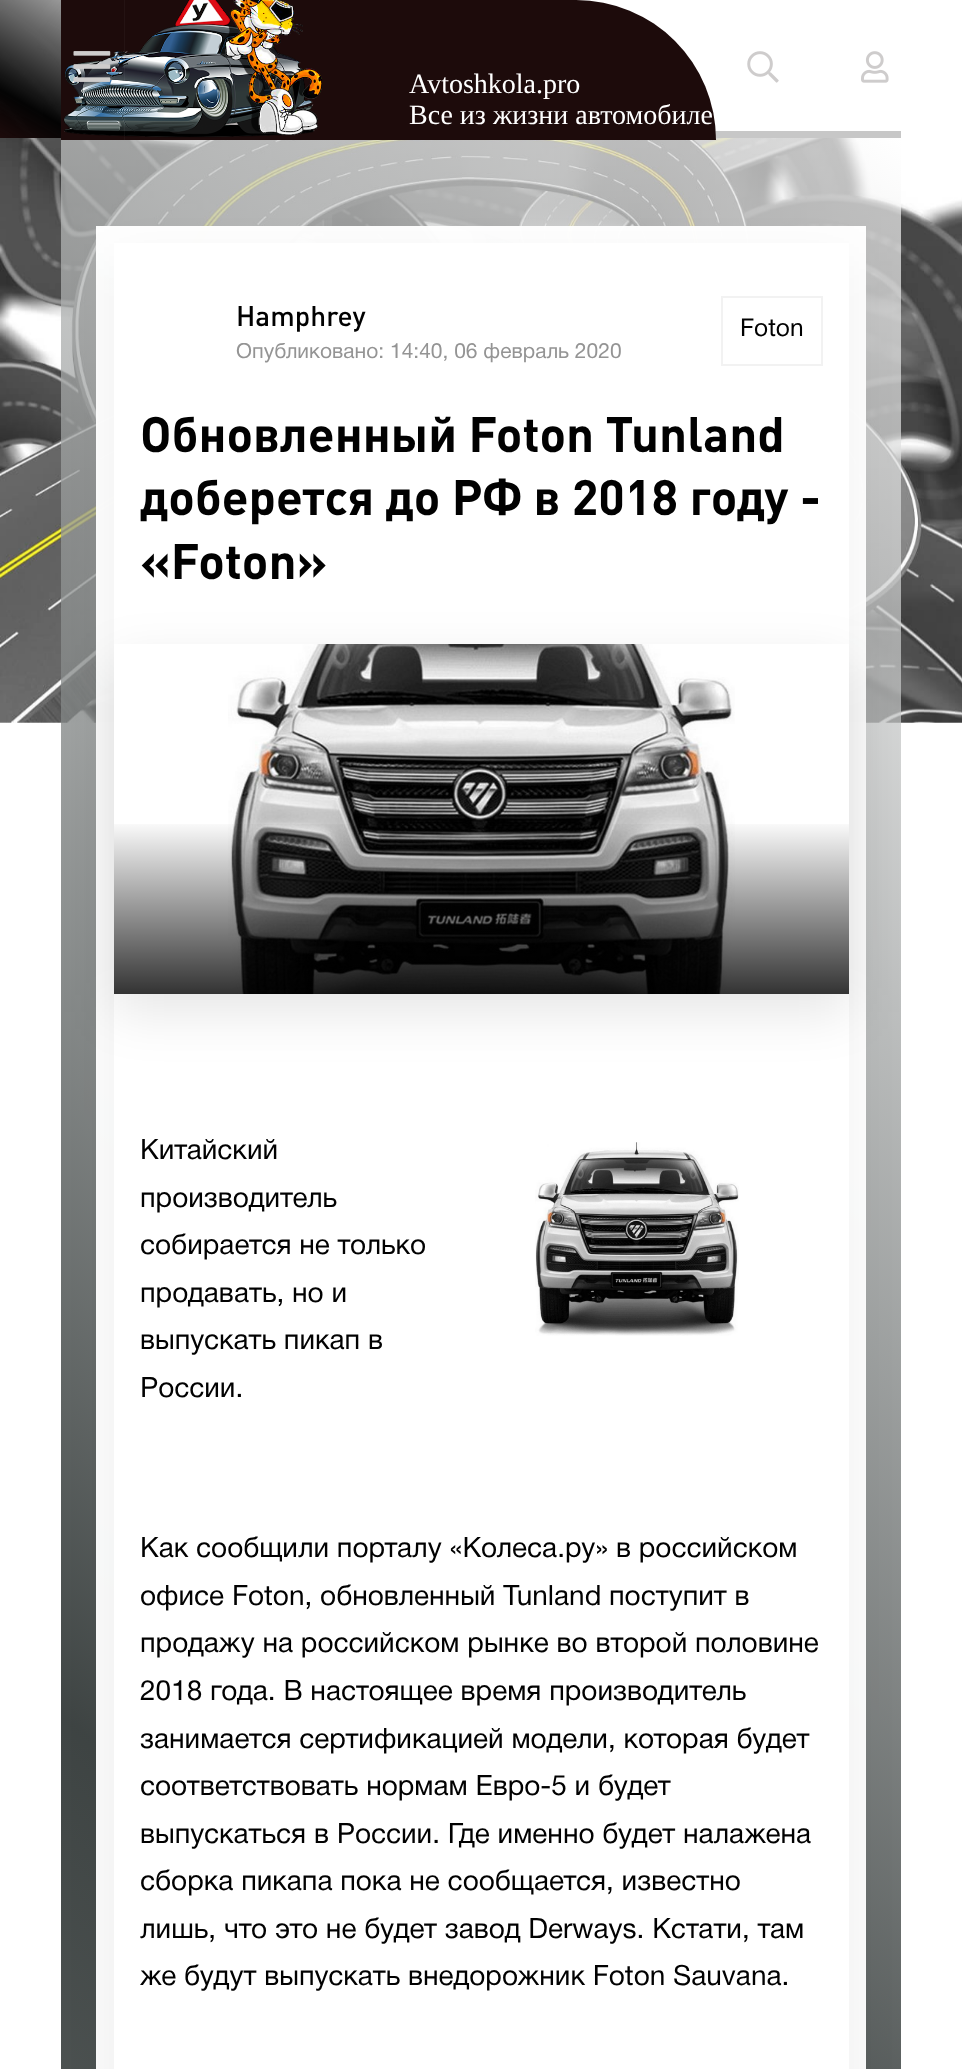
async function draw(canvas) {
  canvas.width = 962
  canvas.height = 2069
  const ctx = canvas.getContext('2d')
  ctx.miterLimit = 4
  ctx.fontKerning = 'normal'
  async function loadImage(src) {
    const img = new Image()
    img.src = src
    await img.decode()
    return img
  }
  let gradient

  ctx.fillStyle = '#fff'
  ctx.fillRect(0, 0, 962, 2069)
  ctx.drawImage(await loadImage('image0.png'), 0, 0, 962, 723)
  ctx.fillStyle = '#c7c7c7'
  ctx.fillRect(715, 131, 186, 7)
  gradient = ctx.createLinearGradient(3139, 1825, -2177, 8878)
  gradient.addColorStop(0, '#ffffffad')
  gradient.addColorStop(0.2, '#1d2423d9')
  gradient.addColorStop(0.65, '#ffffffe0')
  ctx.fillStyle = gradient
  ctx.fillRect(61, 138, 840, 1931)
  ctx.fillStyle = '#1d0b0b'
  ctx.beginPath()
  ctx.roundRect(61, 0, 655, 140, [0, 140, 0, 0])
  ctx.fill()
  ctx.drawImage(await loadImage('image1.png'), 63, 0, 259, 140)
  ctx.drawImage(await loadImage('image2.png'), 73, 51, 38, 31)
  ctx.drawImage(await loadImage('image3.png'), 747, 51, 32, 32)
  ctx.drawImage(await loadImage('image4.png'), 861, 51, 28, 32)
  ctx.font = '28px Liberation Serif'
  ctx.fillStyle = '#fff'
  ctx.fillText('Avtoshkola.pro', 409, 93)
  ctx.fillText('Все из жизни автомобиле', 409, 124)
  ctx.fillStyle = '#fffffffa'
  ctx.fillRect(96, 226, 770, 1843)
  ctx.fillStyle = '#0000000d'
  ctx.filter = 'blur(26px)'
  ctx.beginPath()
  ctx.rect(114, 261, 735, 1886)
  ctx.fill()
  ctx.filter = 'none'
  ctx.fillStyle = '#fff'
  ctx.fillRect(114, 243, 735, 1826)
  ctx.font = '500 28px DIN'
  ctx.fillStyle = '#010101'
  ctx.fillText('Hamphrey', 236, 326)
  ctx.save()
  ctx.beginPath()
  ctx.rect(236, 343, 459, 21)
  ctx.clip()
  ctx.font = '21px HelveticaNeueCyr'
  ctx.fillStyle = '#949494'
  ctx.fillText('Опубликовано: 14:40, 06 февраль 2020', 236, 358)
  ctx.restore()
  ctx.strokeStyle = '#f2f2f2'
  ctx.lineWidth = 2
  ctx.strokeRect(722, 297, 100, 68)
  ctx.font = '24.5px HelveticaNeueCyr'
  ctx.fillText('Foton', 740, 336)
  ctx.font = 'bold 49px DIN'
  ctx.fillText('Обновленный Foton Tunland', 140, 452)
  ctx.fillText('доберется до РФ в 2018 году -', 140, 515)
  ctx.fillText('«Foton»', 140, 579)
  ctx.save()
  ctx.beginPath()
  ctx.moveTo(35, 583)
  ctx.lineTo(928, 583)
  ctx.lineTo(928, 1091)
  ctx.lineTo(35, 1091)
  ctx.closePath()
  ctx.moveTo(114, 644)
  ctx.lineTo(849, 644)
  ctx.lineTo(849, 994)
  ctx.lineTo(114, 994)
  ctx.closePath()
  ctx.clip('evenodd')
  ctx.fillStyle = '#0000001a'
  ctx.filter = 'blur(26px)'
  ctx.beginPath()
  ctx.rect(114, 662, 735, 350)
  ctx.fill()
  ctx.filter = 'none'
  ctx.restore()
  ctx.drawImage(await loadImage('image5.png'), 228, 644, 507, 350)
  gradient = ctx.createLinearGradient(481, 994, 481, 819)
  gradient.addColorStop(0, '#000000cc')
  gradient.addColorStop(1, '#00000000')
  ctx.fillStyle = gradient
  ctx.fillRect(114, 824, 735, 170)
  ctx.font = '28px HelveticaNeueCyr'
  ctx.fillStyle = '#010101'
  ctx.fillText('Китайский', 140, 1159)
  ctx.fillText('производитель', 140, 1207)
  ctx.fillText('собирается не только', 140, 1254)
  ctx.fillText('продавать, но и', 140, 1302)
  ctx.fillText('выпускать пикап в', 140, 1349)
  ctx.fillText('России.', 140, 1397)
  ctx.drawImage(await loadImage('image6.png'), 535, 1142, 204, 194)
  ctx.fillText('Как сообщили порталу «Колеса.ру» в российском', 140, 1557)
  ctx.fillText('офисе Foton, обновленный Tunland поступит в', 140, 1605)
  ctx.fillText('продажу на российском рынке во второй половине', 140, 1652)
  ctx.fillText('2018 года. В настоящее время производитель', 140, 1700)
  ctx.fillText('занимается сертификацией модели, которая будет', 140, 1748)
  ctx.fillText('соответствовать нормам Евро-5 и будет', 140, 1795)
  ctx.fillText('выпускаться в России. Где именно будет налажена', 140, 1843)
  ctx.fillText('сборка пикапа пока не сообщается, известно', 140, 1890)
  ctx.fillText('лишь, что это не будет завод Derways. Кстати, там', 140, 1938)
  ctx.fillText('же будут выпускать внедорожник Foton Sauvana.', 140, 1985)
}

draw(document.querySelector('canvas'))
